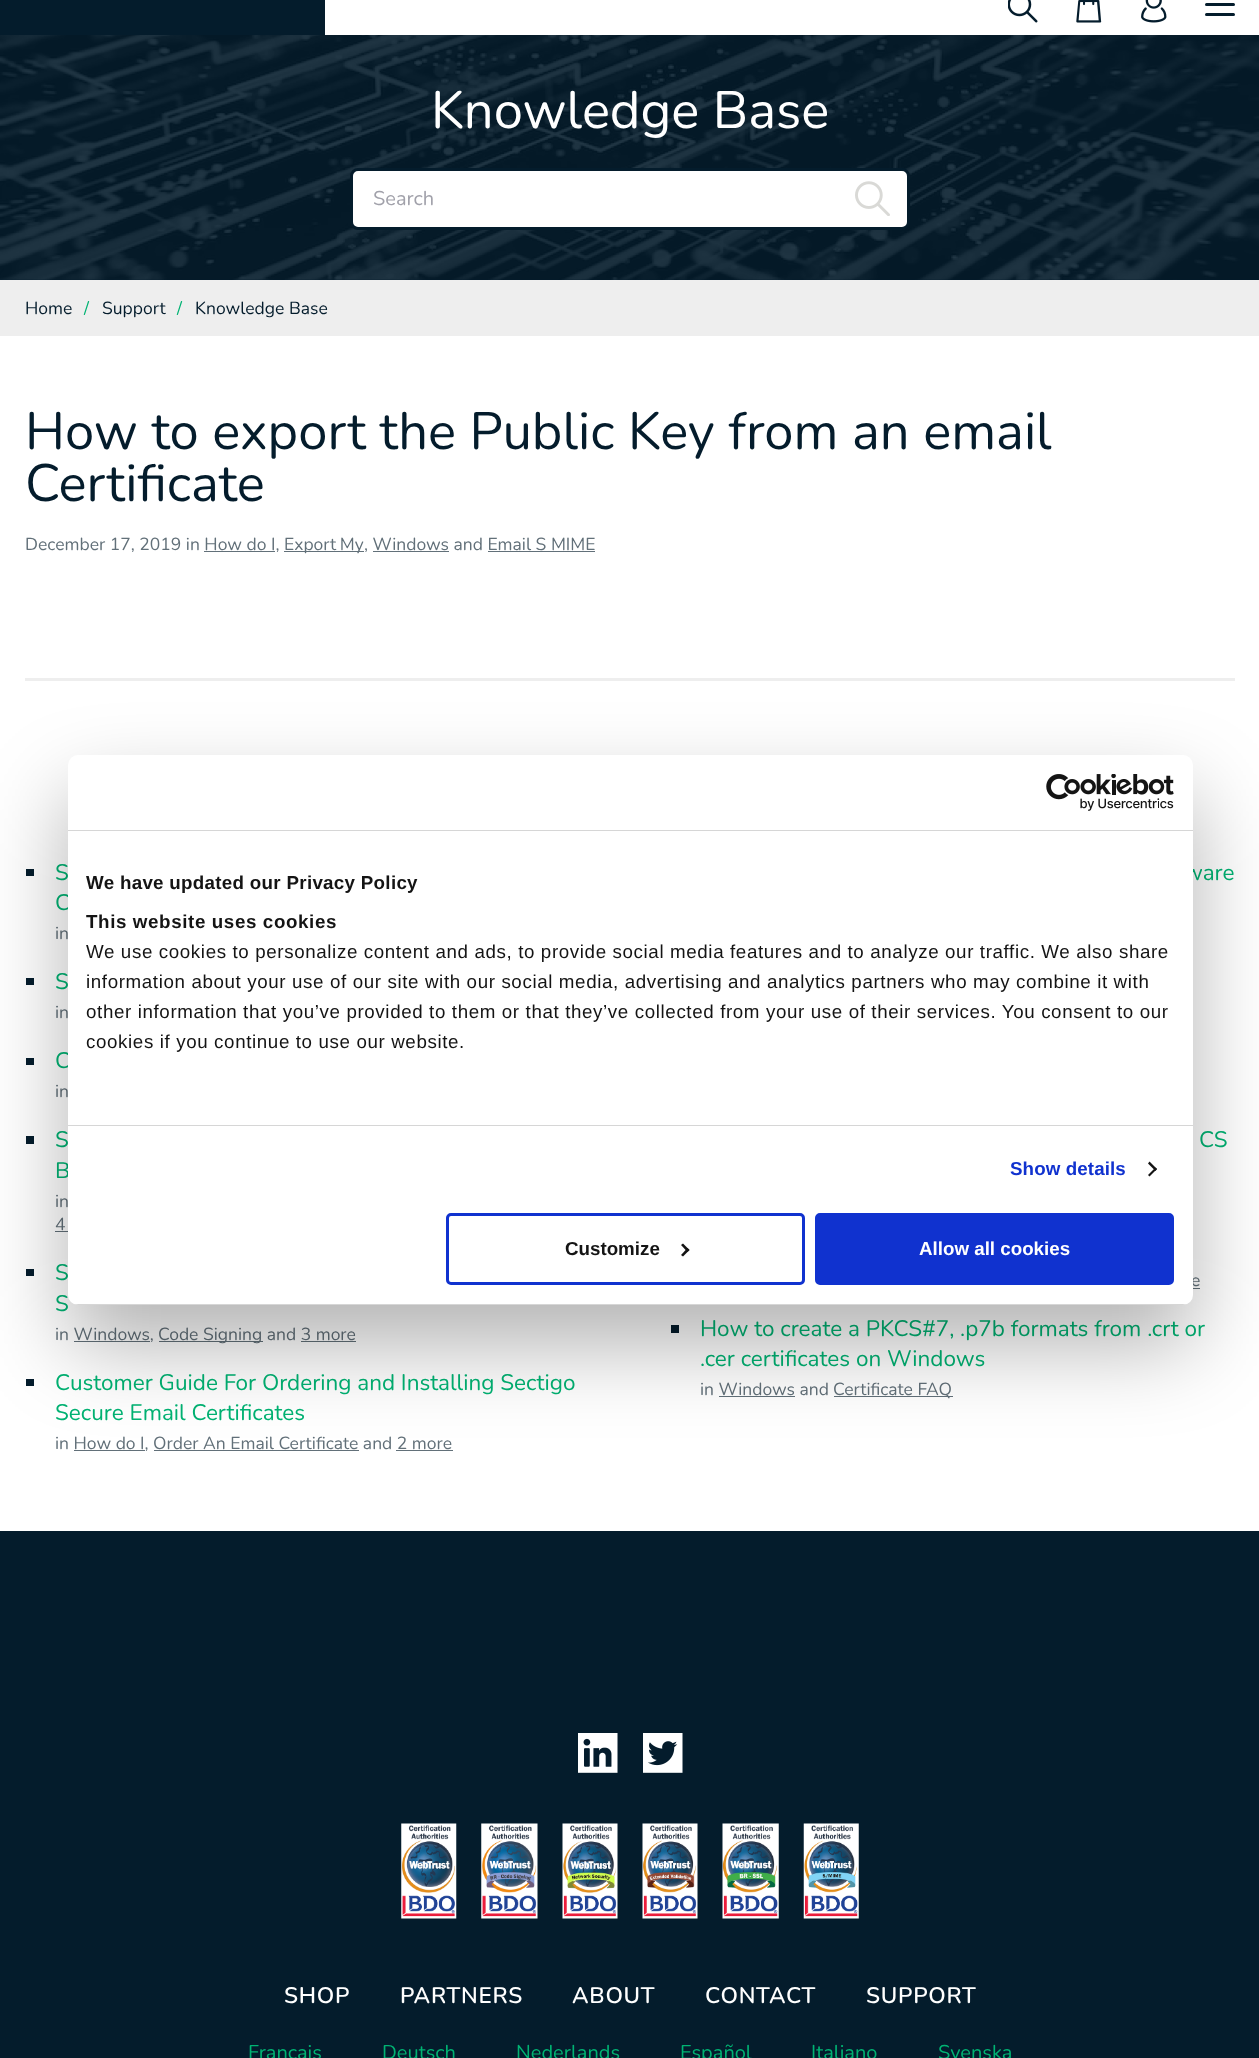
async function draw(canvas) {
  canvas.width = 1259
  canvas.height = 2058
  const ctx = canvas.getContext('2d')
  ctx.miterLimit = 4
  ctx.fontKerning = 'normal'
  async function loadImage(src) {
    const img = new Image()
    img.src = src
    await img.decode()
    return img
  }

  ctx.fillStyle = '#fff'
  ctx.fillRect(0, 0, 1259, 2058)
  ctx.fillStyle = '#041c2c'
  ctx.fillRect(0, 0, 325, 35)
  ctx.drawImage(await loadImage('image0.png'), 1008, 0, 30, 23)
  ctx.drawImage(await loadImage('image1.png'), 1076, 0, 26, 23)
  ctx.drawImage(await loadImage('image2.png'), 1141, 0, 26, 23)
  ctx.beginPath()
  ctx.roundRect(1205, 3, 30, 3, 1.5)
  ctx.fill()
  ctx.beginPath()
  ctx.roundRect(1205, 13, 30, 3, 1.5)
  ctx.fill()
  ctx.fillRect(0, 35, 1259, 245)
  ctx.drawImage(await loadImage('image3.png'), 0, 35, 1259, 245)
  ctx.font = '52.5px Nunito'
  ctx.fillStyle = '#fff'
  ctx.fillText('Knowledge Base', 431, 128)
  ctx.beginPath()
  ctx.roundRect(351.5, 169.5, 557, 59, 6.5)
  ctx.fill()
  ctx.strokeStyle = '#041c2c'
  ctx.lineWidth = 3
  ctx.stroke()
  ctx.font = '20px Nunito'
  ctx.fillStyle = '#a1a1aa'
  ctx.fillText('Search', 373, 205)
  ctx.drawImage(await loadImage('image4.png'), 855, 181, 35, 35)
  ctx.fillStyle = '#eee'
  ctx.fillRect(0, 280, 1259, 56)
  ctx.font = '17.5px Nunito'
  ctx.fillStyle = '#041c2c'
  ctx.fillText('Home', 25, 314)
  ctx.fillStyle = '#00b373'
  ctx.fillText('/', 84, 314)
  ctx.fillStyle = '#041c2c'
  ctx.fillText('Support', 102, 314)
  ctx.fillStyle = '#00b373'
  ctx.fillText('/', 177, 314)
  ctx.fillStyle = '#041c2c'
  ctx.fillText('Knowledge Base', 195, 314)
  ctx.font = '52.5px Nunito'
  ctx.fillText('How to export the Public Key from an email', 25, 449)
  ctx.fillText('Certificate', 25, 501)
  ctx.font = '17.5px Nunito'
  ctx.fillStyle = '#627079'
  ctx.fillText('December 17, 2019 in How do I,', 25, 550)
  ctx.fillRect(284, 551, 80, 1)
  ctx.wordSpacing = '-1px'
  ctx.fillText('Export My', 284, 550)
  ctx.fillRect(204, 551, 71, 1)
  ctx.wordSpacing = '0px'
  ctx.fillText(', Windows and Email S MIME', 364, 550)
  ctx.fillRect(373, 551, 76, 1)
  ctx.fillRect(488, 551, 107, 1)
  ctx.fillStyle = '#eee'
  ctx.fillRect(25, 678, 1210, 3)
  ctx.fillStyle = '#041c2c'
  ctx.fillRect(26, 869, 8, 7)
  ctx.font = '22.5px Nunito'
  ctx.fillStyle = '#00b373'
  ctx.fillText('S', 55, 880)
  ctx.fillText('C', 55, 910)
  ctx.font = '17.5px Nunito'
  ctx.fillStyle = '#627079'
  ctx.fillText('in', 55, 939)
  ctx.fillStyle = '#041c2c'
  ctx.fillRect(26, 978, 8, 7)
  ctx.font = '22.5px Nunito'
  ctx.fillStyle = '#00b373'
  ctx.fillText('S', 55, 989)
  ctx.font = '17.5px Nunito'
  ctx.fillStyle = '#627079'
  ctx.fillText('in', 55, 1018)
  ctx.fillStyle = '#041c2c'
  ctx.fillRect(26, 1058, 8, 7)
  ctx.font = '22.5px Nunito'
  ctx.fillStyle = '#00b373'
  ctx.fillText('C', 55, 1068)
  ctx.font = '17.5px Nunito'
  ctx.fillStyle = '#627079'
  ctx.fillText('in', 55, 1097)
  ctx.fillStyle = '#041c2c'
  ctx.fillRect(26, 1136, 8, 8)
  ctx.font = '22.5px Nunito'
  ctx.fillStyle = '#00b373'
  ctx.fillText('S', 55, 1147)
  ctx.fillText('B', 55, 1178)
  ctx.font = '17.5px Nunito'
  ctx.fillStyle = '#627079'
  ctx.fillText('in', 55, 1207)
  ctx.fillText('4', 55, 1230)
  ctx.fillRect(55, 1231, 13, 1)
  ctx.fillStyle = '#041c2c'
  ctx.fillRect(26, 1269, 8, 7)
  ctx.font = '22.5px Nunito'
  ctx.fillStyle = '#00b373'
  ctx.fillText('S', 55, 1280)
  ctx.fillText('S', 55, 1311)
  ctx.font = '17.5px Nunito'
  ctx.fillStyle = '#627079'
  ctx.fillText('in Windows,', 55, 1340)
  ctx.fillRect(159, 1341, 104, 1)
  ctx.fillText('Code Signing and 3 more', 158, 1340)
  ctx.fillRect(74, 1341, 76, 1)
  ctx.fillRect(301, 1341, 55, 1)
  ctx.fillStyle = '#041c2c'
  ctx.fillRect(26, 1379, 8, 7)
  ctx.font = '22.5px Nunito'
  ctx.fillStyle = '#00b373'
  ctx.fillText('Customer Guide For Ordering and Installing Sectigo', 55, 1390)
  ctx.fillText('Secure Email Certificates', 55, 1420)
  ctx.font = '17.5px Nunito'
  ctx.fillStyle = '#627079'
  ctx.fillText('in How do I, Order An Email Certificate and 2 more', 55, 1449)
  ctx.fillRect(74, 1450, 71, 1)
  ctx.fillRect(154, 1450, 205, 1)
  ctx.fillRect(396, 1450, 57, 1)
  ctx.font = '22.5px Nunito'
  ctx.fillStyle = '#00b373'
  ctx.fillText('ware', 1184, 880)
  ctx.fillText('CS', 1199, 1147)
  ctx.font = '17.5px Nunito'
  ctx.fillStyle = '#627079'
  ctx.fillText('e', 1191, 1286)
  ctx.fillRect(1193, 1288, 7, 1)
  ctx.fillStyle = '#041c2c'
  ctx.fillRect(671, 1325, 8, 8)
  ctx.font = '22.5px Nunito'
  ctx.fillStyle = '#00b373'
  ctx.fillText('How to create a PKCS#7, .p7b formats from .crt or', 700, 1336)
  ctx.fillText('.cer certificates on Windows', 700, 1366)
  ctx.font = '17.5px Nunito'
  ctx.fillStyle = '#627079'
  ctx.fillText('in Windows and', 700, 1395)
  ctx.fillRect(719, 1396, 76, 1)
  ctx.fillRect(834, 1396, 119, 1)
  ctx.fillText('Certificate FAQ', 833, 1395)
  ctx.fillStyle = '#041c2c'
  ctx.fillRect(0, 1531, 1259, 527)
  ctx.drawImage(await loadImage('image5.png'), 578, 1733, 40, 40)
  ctx.drawImage(await loadImage('image6.png'), 643, 1733, 40, 40)
  ctx.drawImage(await loadImage('image7.png'), 401, 1823, 56, 96)
  ctx.drawImage(await loadImage('image8.png'), 481, 1823, 57, 96)
  ctx.drawImage(await loadImage('image9.png'), 562, 1823, 56, 96)
  ctx.drawImage(await loadImage('image10.png'), 642, 1823, 56, 96)
  ctx.drawImage(await loadImage('image11.png'), 722, 1823, 57, 96)
  ctx.drawImage(await loadImage('image12.png'), 803, 1823, 56, 96)
  ctx.letterSpacing = '0.75px'
  ctx.font = '600 22.5px Nunito'
  ctx.fillStyle = '#fff'
  ctx.fillText('SHOP', 284, 2003)
  ctx.fillText('PARTNERS', 400, 2003)
  ctx.fillText('ABOUT', 572, 2003)
  ctx.fillText('CONTACT', 705, 2003)
  ctx.fillText('SUPPORT', 866, 2003)
  ctx.letterSpacing = '0px'
  ctx.font = '20px Nunito'
  ctx.fillStyle = '#00b373'
  ctx.fillText('Français', 248, 2059)
  ctx.fillText('Deutsch', 382, 2059)
  ctx.fillText('Nederlands', 516, 2059)
  ctx.fillText('Español', 680, 2059)
  ctx.fillText('Italiano', 811, 2059)
  ctx.fillText('Svenska', 938, 2059)
  ctx.fillStyle = '#0000004d'
  ctx.filter = 'blur(42.5px)'
  ctx.beginPath()
  ctx.roundRect(68, 795, 1125, 550, 10)
  ctx.fill()
  ctx.filter = 'none'
  ctx.fillStyle = '#fff'
  ctx.beginPath()
  ctx.roundRect(68, 755, 1125, 550, 10)
  ctx.fill()
  ctx.fillStyle = '#d6d6d6'
  ctx.fillRect(68, 830, 1125, 1)
  ctx.drawImage(await loadImage('image13.png'), 1046, 774, 128, 37)
  ctx.fillRect(68, 1125, 1125, 1)
  ctx.letterSpacing = '0.3px'
  ctx.font = 'bold 18.75px Liberation Sans'
  ctx.fillStyle = '#141414'
  ctx.fillText('We have updated our Privacy Policy', 86, 889)
  ctx.letterSpacing = '0.62px'
  ctx.fillText('This website uses cookies', 86, 928)
  ctx.font = '18.75px Liberation Sans'
  ctx.fillText('We use cookies to personalize content and ads, to provide social media features and to analyze our traffic. We also share', 86, 958)
  ctx.fillText('information about your use of our site with our social media, advertising and analytics partners who may combine it with', 86, 988)
  ctx.fillText('other information that you’ve provided to them or that they’ve collected from your use of their services. You consent to our', 86, 1018)
  ctx.fillText('cookies if you continue to use our website.', 86, 1048)
  ctx.letterSpacing = '0.1px'
  ctx.font = 'bold 18.75px Liberation Sans'
  ctx.fillStyle = '#1032cf'
  ctx.fillText('Show details', 1010, 1175)
  ctx.fillStyle = '#141414'
  ctx.beginPath()
  ctx.moveTo(1149.5, 1161.5)
  ctx.lineTo(1157, 1169)
  ctx.lineTo(1155.5, 1171)
  ctx.lineTo(1148, 1163.5)
  ctx.closePath()
  ctx.fill()
  ctx.beginPath()
  ctx.moveTo(1155.5, 1167.5)
  ctx.lineTo(1157, 1169)
  ctx.lineTo(1149.5, 1176.5)
  ctx.lineTo(1148, 1175)
  ctx.closePath()
  ctx.fill()
  ctx.save()
  ctx.beginPath()
  ctx.roundRect(68, 755, 1125, 550, 10)
  ctx.clip()
  ctx.fillStyle = '#d6d6d6'
  ctx.fillRect(68, 1304, 1125, 1)
  ctx.restore()
  ctx.beginPath()
  ctx.roundRect(447.5, 1214.5, 356, 69, 3.5)
  ctx.strokeStyle = '#1032cf'
  ctx.stroke()
  ctx.letterSpacing = '0px'
  ctx.fillText('Customize', 565, 1255)
  ctx.beginPath()
  ctx.moveTo(683, 1243.5)
  ctx.lineTo(689.5, 1250)
  ctx.lineTo(687.5, 1252)
  ctx.lineTo(681, 1245)
  ctx.closePath()
  ctx.fill()
  ctx.beginPath()
  ctx.moveTo(687.5, 1248)
  ctx.lineTo(689.5, 1250)
  ctx.lineTo(683, 1256.5)
  ctx.lineTo(681, 1255)
  ctx.closePath()
  ctx.fill()
  ctx.fillStyle = '#1032cf'
  ctx.beginPath()
  ctx.roundRect(816.5, 1214.5, 356, 69, 3.5)
  ctx.fill()
  ctx.stroke()
  ctx.fillStyle = '#fff'
  ctx.fillText('Allow all cookies', 919, 1255)
}

draw(document.querySelector('canvas'))
